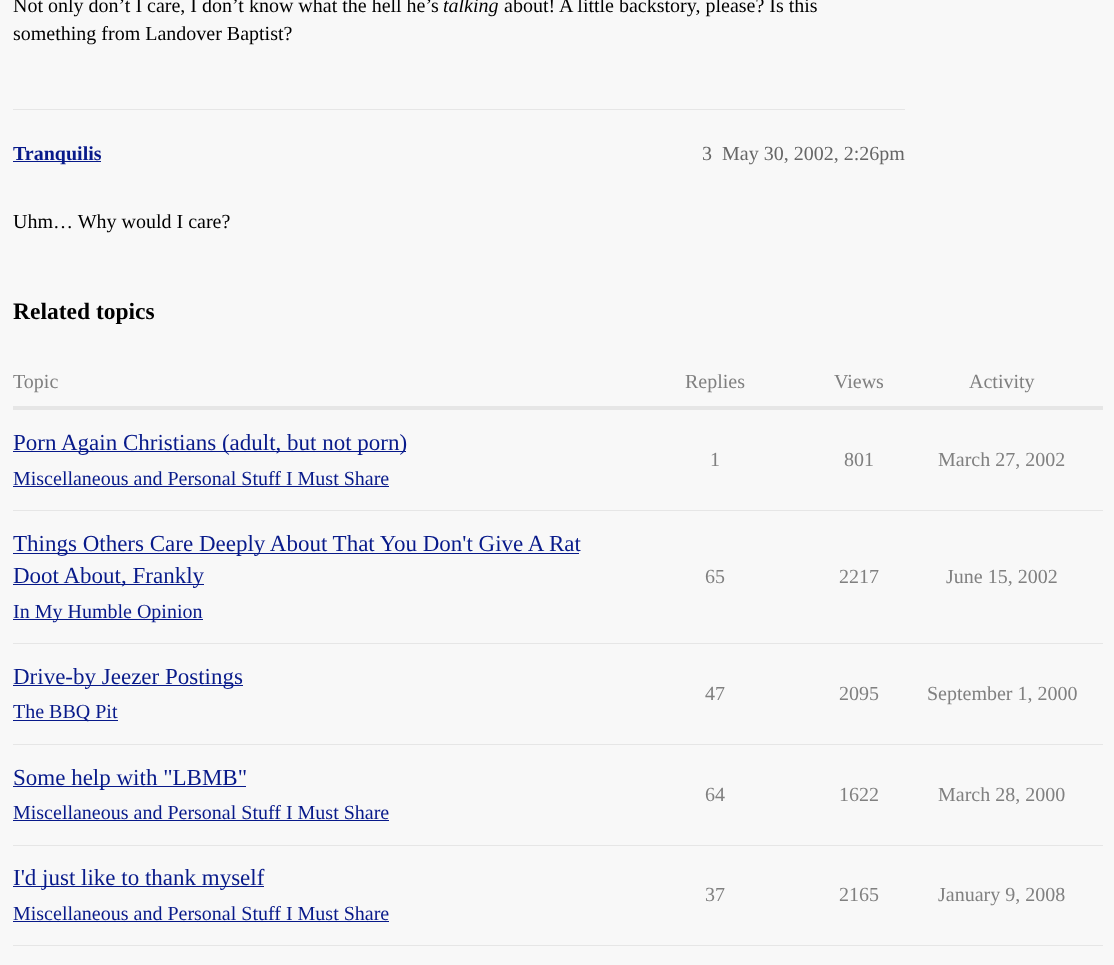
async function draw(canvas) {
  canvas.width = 1114
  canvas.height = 965
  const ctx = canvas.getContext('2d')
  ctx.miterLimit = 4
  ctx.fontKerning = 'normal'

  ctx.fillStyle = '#f8f8f8'
  ctx.fillRect(0, 0, 1114, 965)
  ctx.font = '20px Liberation Serif'
  ctx.fillStyle = '#000'
  ctx.fillText('Not only don’t I care, I don’t know what the hell he’s', 13, 12)
  ctx.font = 'italic 20px Liberation Serif'
  ctx.fillText('talking', 443, 12)
  ctx.font = '20px Liberation Serif'
  ctx.fillText('about! A little backstory, please? Is this', 504, 12)
  ctx.fillText('something from Landover Baptist?', 13, 40)
  ctx.fillStyle = '#e6e6e6'
  ctx.fillRect(13, 109, 892, 1)
  ctx.fillStyle = '#081a8a'
  ctx.fillRect(13, 161, 88, 1)
  ctx.font = 'bold 20px Liberation Serif'
  ctx.fillText('Tranquilis', 13, 160)
  ctx.font = '20px Liberation Serif'
  ctx.fillStyle = '#666'
  ctx.fillText('3', 702, 160)
  ctx.fillText('May 30, 2002, 2:26pm', 722, 160)
  ctx.fillStyle = '#000'
  ctx.fillText('Uhm… Why would I care?', 13, 228)
  ctx.font = 'bold 23.5px Liberation Serif'
  ctx.fillText('Related topics', 13, 319)
  ctx.save()
  ctx.beginPath()
  ctx.rect(13, 369, 1090, 577)
  ctx.clip()
  ctx.font = '20px Liberation Serif'
  ctx.fillStyle = '#808080'
  ctx.fillText('Topic', 13, 388)
  ctx.restore()
  ctx.font = '20px Liberation Serif'
  ctx.fillStyle = '#808080'
  ctx.fillText('Replies', 685, 388)
  ctx.fillText('Views', 834, 388)
  ctx.fillText('Activity', 969, 388)
  ctx.fillStyle = '#e6e6e6'
  ctx.fillRect(13, 406, 1090, 4)
  ctx.fillRect(13, 510, 1090, 1)
  ctx.fillStyle = '#081a8a'
  ctx.fillRect(13, 451, 393, 1)
  ctx.font = '23px Liberation Serif'
  ctx.fillText('Porn Again Christians (adult, but not porn)', 13, 450)
  ctx.font = '20px Liberation Serif'
  ctx.fillText('Miscellaneous and Personal Stuff I Must Share', 13, 485)
  ctx.fillRect(13, 486, 376, 1)
  ctx.fillStyle = '#808080'
  ctx.fillText('1', 710, 466)
  ctx.fillText('801', 844, 466)
  ctx.fillText('March 27, 2002', 938, 466)
  ctx.fillStyle = '#e6e6e6'
  ctx.fillRect(13, 643, 1090, 1)
  ctx.fillStyle = '#081a8a'
  ctx.fillRect(13, 553, 566, 1)
  ctx.save()
  ctx.beginPath()
  ctx.rect(13, 369, 1090, 577)
  ctx.clip()
  ctx.font = '23px Liberation Serif'
  ctx.fillText('Things Others Care Deeply About That You Don\'t Give A Rat', 13, 551)
  ctx.restore()
  ctx.fillRect(13, 584, 191, 1)
  ctx.font = '23px Liberation Serif'
  ctx.fillText('Doot About, Frankly', 13, 583)
  ctx.fillRect(13, 619, 190, 1)
  ctx.font = '20px Liberation Serif'
  ctx.fillText('In My Humble Opinion', 13, 618)
  ctx.fillStyle = '#808080'
  ctx.fillText('65', 705, 583)
  ctx.fillText('2217', 839, 583)
  ctx.fillText('June 15, 2002', 946, 583)
  ctx.fillStyle = '#e6e6e6'
  ctx.fillRect(13, 744, 1090, 1)
  ctx.fillStyle = '#081a8a'
  ctx.fillRect(13, 685, 230, 1)
  ctx.font = '23px Liberation Serif'
  ctx.fillText('Drive-by Jeezer Postings', 13, 684)
  ctx.fillRect(13, 720, 105, 1)
  ctx.save()
  ctx.beginPath()
  ctx.rect(13, 369, 1090, 577)
  ctx.clip()
  ctx.font = '20px Liberation Serif'
  ctx.fillText('The BBQ Pit', 13, 718)
  ctx.restore()
  ctx.font = '20px Liberation Serif'
  ctx.fillStyle = '#808080'
  ctx.fillText('47', 705, 700)
  ctx.fillText('2095', 839, 700)
  ctx.fillText('September 1, 2000', 927, 700)
  ctx.fillStyle = '#e6e6e6'
  ctx.fillRect(13, 845, 1090, 1)
  ctx.fillStyle = '#081a8a'
  ctx.fillRect(13, 786, 233, 1)
  ctx.font = '23px Liberation Serif'
  ctx.fillText('Some help with "LBMB"', 13, 785)
  ctx.font = '20px Liberation Serif'
  ctx.fillText('Miscellaneous and Personal Stuff I Must Share', 13, 819)
  ctx.fillRect(13, 820, 376, 1)
  ctx.fillStyle = '#808080'
  ctx.fillText('64', 705, 801)
  ctx.fillText('1622', 839, 801)
  ctx.fillText('March 28, 2000', 938, 801)
  ctx.fillStyle = '#e6e6e6'
  ctx.fillRect(13, 945, 1090, 1)
  ctx.fillStyle = '#081a8a'
  ctx.fillRect(13, 886, 251, 1)
  ctx.font = '23px Liberation Serif'
  ctx.fillText('I\'d just like to thank myself', 13, 885)
  ctx.font = '20px Liberation Serif'
  ctx.fillText('Miscellaneous and Personal Stuff I Must Share', 13, 920)
  ctx.fillRect(13, 921, 376, 1)
  ctx.fillStyle = '#808080'
  ctx.fillText('37', 705, 901)
  ctx.fillText('2165', 839, 901)
  ctx.fillText('January 9, 2008', 938, 901)
}

draw(document.querySelector('canvas'))
